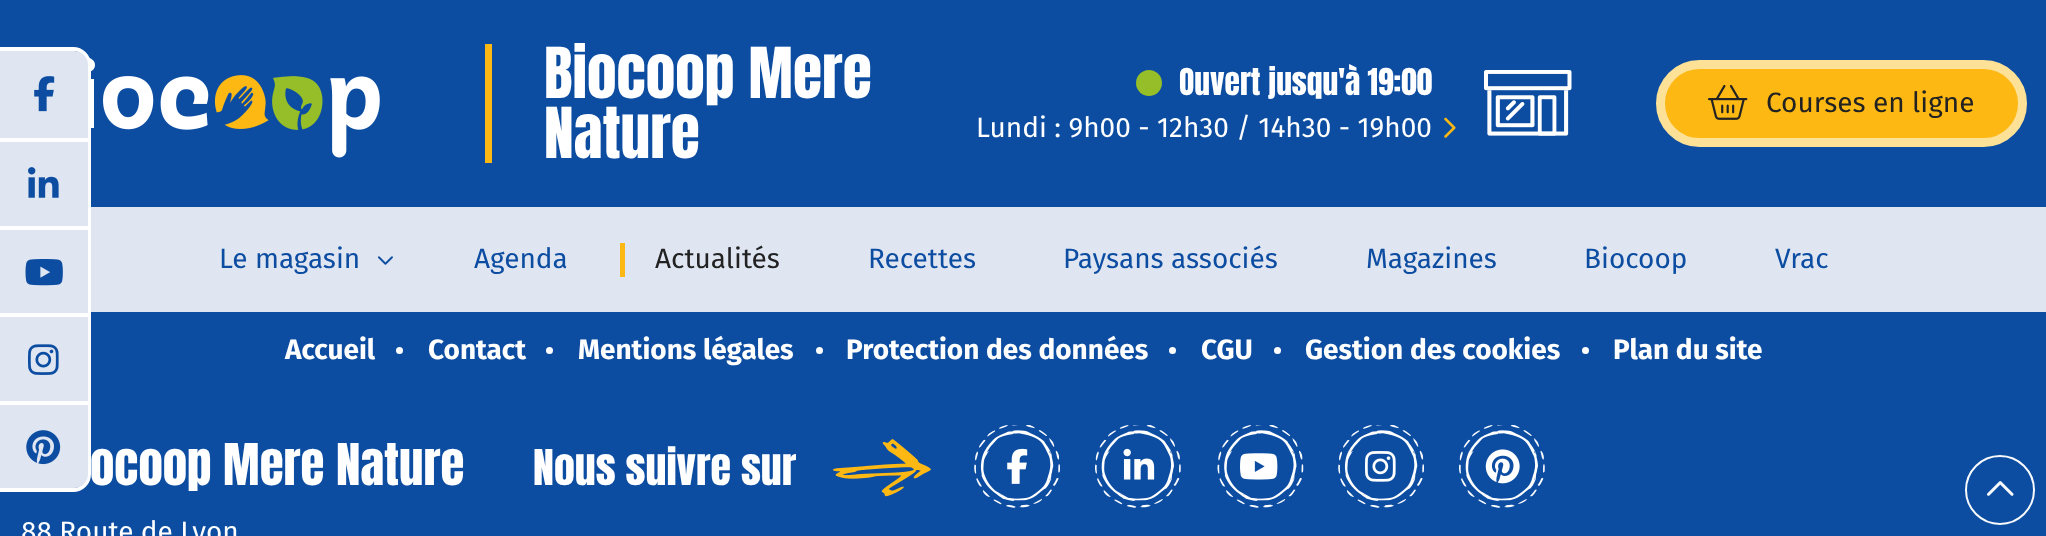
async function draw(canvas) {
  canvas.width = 2046
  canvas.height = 536
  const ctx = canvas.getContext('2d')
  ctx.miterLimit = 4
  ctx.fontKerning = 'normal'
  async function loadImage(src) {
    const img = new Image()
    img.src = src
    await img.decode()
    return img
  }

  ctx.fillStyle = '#0c4da2'
  ctx.fillRect(0, 0, 2046, 536)
  ctx.drawImage(await loadImage('image0.png'), 89, 57, 291, 101)
  ctx.fillStyle = '#fdb813'
  ctx.fillRect(485, 44, 7, 119)
  ctx.font = '59.5px Anton'
  ctx.fillStyle = '#fff'
  ctx.fillText('Biocoop Mere', 544, 98)
  ctx.fillText('Nature', 544, 158)
  ctx.fillStyle = '#96be28'
  ctx.beginPath()
  ctx.arc(1149, 83, 13, 0, 2 * Math.PI)
  ctx.fill()
  ctx.font = '31.5px Anton'
  ctx.fillStyle = '#fff'
  ctx.fillText('Ouvert jusqu\'à 19:00', 1179, 95)
  ctx.drawImage(await loadImage('image1.png'), 1484, 70, 88, 66)
  ctx.font = '28px Fira Sans'
  ctx.fillText('Lundi : 9h00 - 12h30 / 14h30 - 19h00', 976, 137)
  ctx.drawImage(await loadImage('image2.png'), 1444, 117, 12, 21)
  ctx.fillStyle = '#fdb813'
  ctx.beginPath()
  ctx.roundRect(1660.5, 64.5, 362, 78, 39)
  ctx.fill()
  ctx.strokeStyle = '#fce197'
  ctx.lineWidth = 9
  ctx.stroke()
  ctx.drawImage(await loadImage('image3.png'), 1708, 84, 40, 36)
  ctx.fillStyle = '#222'
  ctx.fillText('Courses en ligne', 1766, 112)
  ctx.fillStyle = '#dfe5f1'
  ctx.fillRect(91, 207, 1955, 105)
  ctx.fillStyle = '#0c4da2'
  ctx.fillText('Le magasin', 219, 268)
  ctx.drawImage(await loadImage('image4.png'), 377, 256, 16, 9)
  ctx.fillText('Agenda', 474, 268)
  ctx.fillStyle = '#fdb813'
  ctx.fillRect(620, 243, 5, 34)
  ctx.fillStyle = '#222'
  ctx.fillText('Actualités', 655, 268)
  ctx.fillStyle = '#0c4da2'
  ctx.fillText('Recettes', 868, 268)
  ctx.fillText('Paysans associés', 1063, 268)
  ctx.fillText('Magazines', 1366, 268)
  ctx.fillText('Biocoop', 1584, 268)
  ctx.fillText('Vrac', 1775, 268)
  ctx.beginPath()
  ctx.arc(2000, 490, 34, 0, 2 * Math.PI)
  ctx.strokeStyle = '#f8fafc'
  ctx.lineWidth = 2
  ctx.stroke()
  ctx.drawImage(await loadImage('image5.png'), 1987, 481, 27, 15)
  ctx.beginPath()
  ctx.moveTo(-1, 49)
  ctx.lineTo(73, 49)
  ctx.bezierCurveTo(82, 49, 89, 56, 89, 65)
  ctx.lineTo(89, 474)
  ctx.bezierCurveTo(89, 483, 82, 490, 73, 490)
  ctx.lineTo(-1, 490)
  ctx.closePath()
  ctx.strokeStyle = '#fff'
  ctx.lineWidth = 4
  ctx.stroke()
  ctx.fillStyle = '#dfe5f1'
  ctx.beginPath()
  ctx.roundRect(0, 51, 88, 87, [0, 14, 0, 0])
  ctx.fill()
  ctx.drawImage(await loadImage('image6.png'), 34, 76, 21, 36)
  ctx.fillRect(0, 142, 88, 84)
  ctx.fillStyle = '#fff'
  ctx.fillRect(0, 138, 88, 4)
  ctx.drawImage(await loadImage('image7.png'), 28, 167, 31, 31)
  ctx.fillStyle = '#dfe5f1'
  ctx.fillRect(0, 230, 88, 83)
  ctx.fillStyle = '#fff'
  ctx.fillRect(0, 226, 88, 4)
  ctx.drawImage(await loadImage('image8.png'), 25, 259, 38, 27)
  ctx.fillStyle = '#dfe5f1'
  ctx.fillRect(0, 317, 88, 84)
  ctx.fillStyle = '#fff'
  ctx.fillRect(0, 313, 88, 4)
  ctx.drawImage(await loadImage('image9.png'), 28, 344, 31, 31)
  ctx.fillStyle = '#dfe5f1'
  ctx.beginPath()
  ctx.roundRect(0, 404, 88, 84, [0, 0, 14, 0])
  ctx.fill()
  ctx.fillStyle = '#fff'
  ctx.fillRect(0, 401, 88, 4)
  ctx.drawImage(await loadImage('image10.png'), 26, 430, 35, 35)
  ctx.font = 'bold 28px Fira Sans'
  ctx.fillText('Accueil', 285, 359)
  ctx.beginPath()
  ctx.arc(399.5, 350.5, 3.5, 0, 2 * Math.PI)
  ctx.fill()
  ctx.fillText('Contact', 428, 359)
  ctx.beginPath()
  ctx.arc(549.5, 350.5, 3.5, 0, 2 * Math.PI)
  ctx.fill()
  ctx.fillText('Mentions légales', 578, 359)
  ctx.beginPath()
  ctx.arc(819.5, 350.5, 3.5, 0, 2 * Math.PI)
  ctx.fill()
  ctx.fillText('Protection des données', 846, 359)
  ctx.beginPath()
  ctx.arc(1172.5, 350.5, 3.5, 0, 2 * Math.PI)
  ctx.fill()
  ctx.fillText('CGU', 1201, 359)
  ctx.beginPath()
  ctx.arc(1277.5, 350.5, 3.5, 0, 2 * Math.PI)
  ctx.fill()
  ctx.fillText('Gestion des cookies', 1305, 359)
  ctx.beginPath()
  ctx.arc(1585.5, 350.5, 3.5, 0, 2 * Math.PI)
  ctx.fill()
  ctx.fillText('Plan du site', 1613, 359)
  ctx.font = '49px Anton'
  ctx.fillText('ocoop Mere Nature', 90, 485)
  ctx.font = '28px Fira Sans'
  ctx.fillText('88 Route de Lyon', 21, 541)
  ctx.font = '42px Anton'
  ctx.fillText('Nous suivre sur', 533, 485)
  ctx.drawImage(await loadImage('image11.png'), 832, 439, 99, 58)
  ctx.drawImage(await loadImage('image12.png'), 974, 425, 86, 83)
  ctx.drawImage(await loadImage('image13.png'), 1007, 448, 21, 36)
  ctx.drawImage(await loadImage('image14.png'), 1095, 425, 86, 83)
  ctx.drawImage(await loadImage('image15.png'), 1123, 448, 32, 32)
  ctx.drawImage(await loadImage('image16.png'), 1217, 425, 87, 83)
  ctx.drawImage(await loadImage('image17.png'), 1240, 453, 38, 27)
  ctx.drawImage(await loadImage('image12.png'), 1338, 425, 86, 83)
  ctx.drawImage(await loadImage('image18.png'), 1365, 451, 31, 31)
  ctx.drawImage(await loadImage('image14.png'), 1459, 425, 86, 83)
  ctx.drawImage(await loadImage('image19.png'), 1485, 449, 35, 35)
}

draw(document.querySelector('canvas'))
